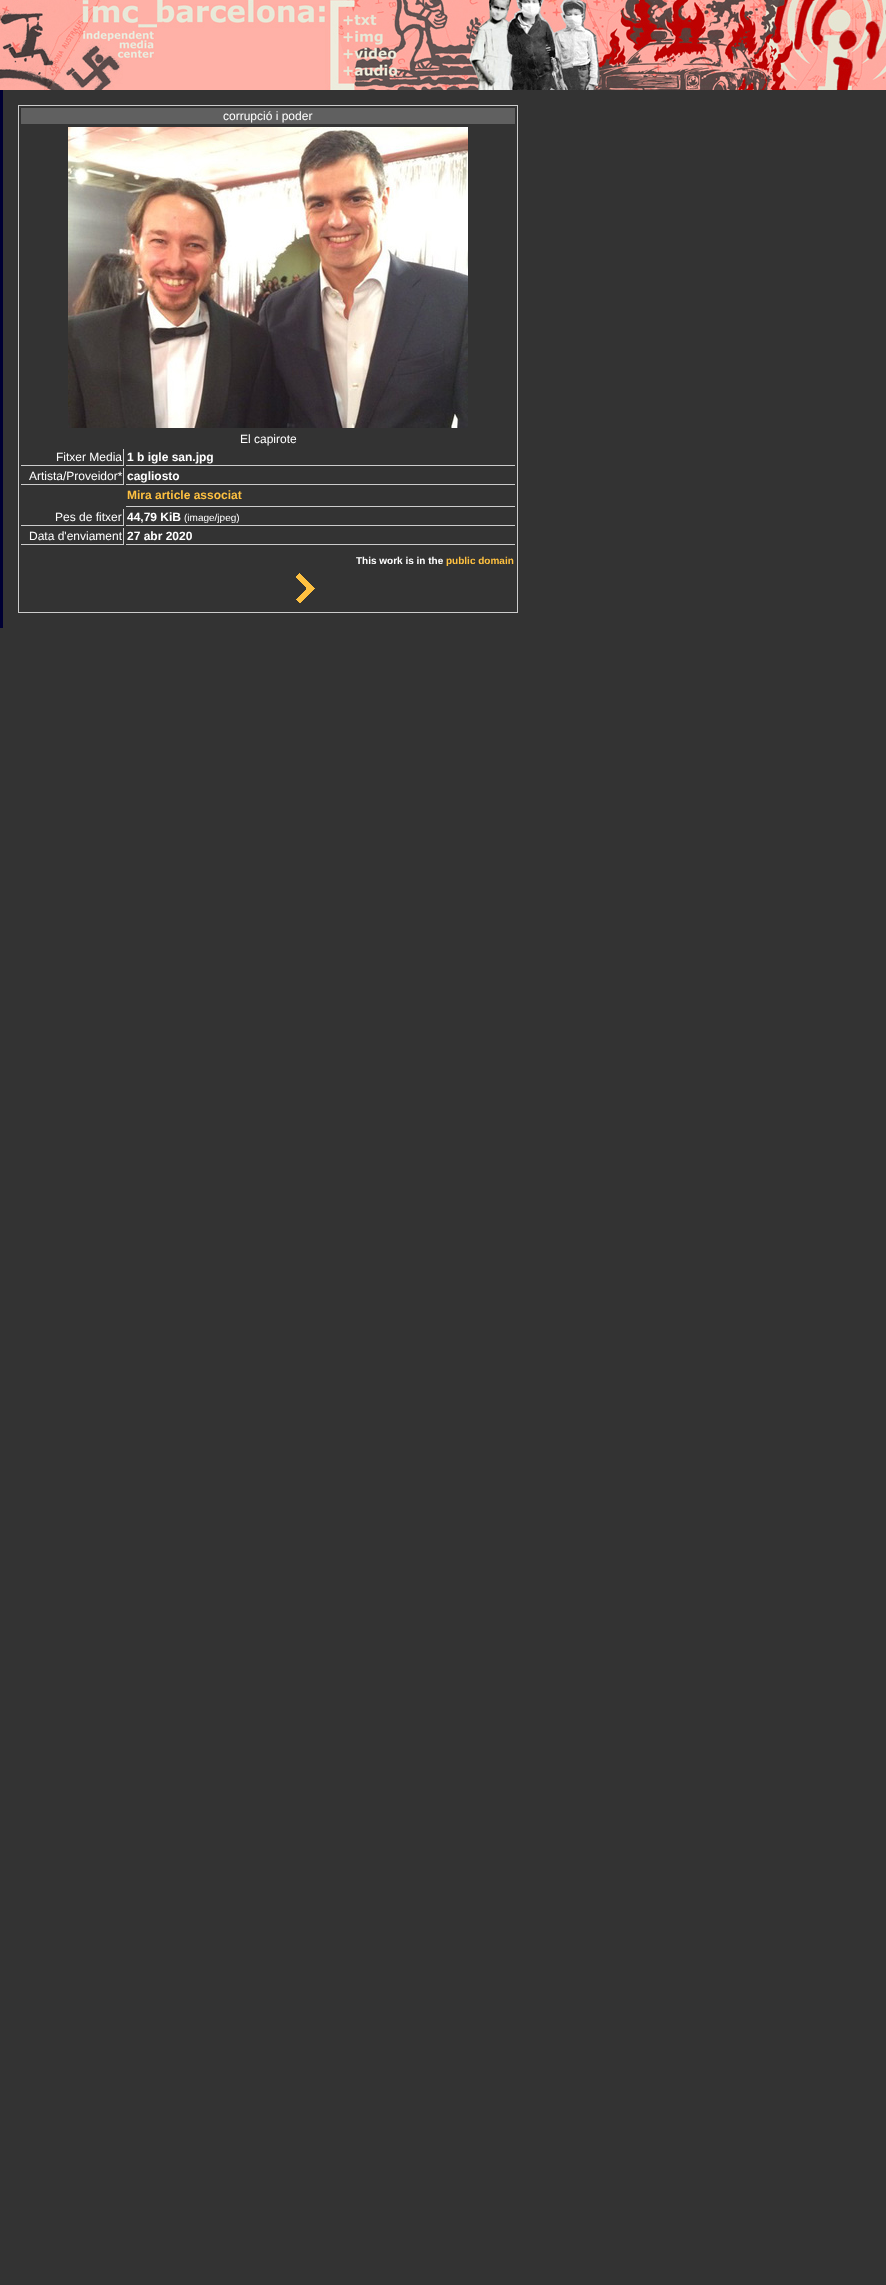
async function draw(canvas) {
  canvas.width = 886
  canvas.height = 2285
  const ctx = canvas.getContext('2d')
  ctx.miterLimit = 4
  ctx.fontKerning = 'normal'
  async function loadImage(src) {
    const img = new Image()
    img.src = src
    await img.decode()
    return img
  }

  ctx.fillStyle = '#333'
  ctx.fillRect(0, 0, 886, 2285)
  ctx.drawImage(await loadImage('image0.png'), 0, 0, 157, 90)
  ctx.drawImage(await loadImage('image1.png'), 157, 0, 729, 90)
  ctx.fillStyle = '#003'
  ctx.fillRect(0, 90, 3, 538)
  ctx.strokeStyle = '#ccc'
  ctx.strokeRect(18.5, 105.5, 499, 507)
  ctx.fillStyle = '#606060'
  ctx.fillRect(21, 108, 494, 16)
  ctx.font = '12px Liberation Sans'
  ctx.fillStyle = '#fff'
  ctx.fillText('corrupció i poder', 223, 120)
  ctx.drawImage(await loadImage('image2.png'), 68, 127, 400, 301)
  ctx.fillText('El capirote', 240, 443)
  ctx.fillStyle = '#ccc'
  ctx.fillRect(123, 449, 1, 17)
  ctx.fillRect(21, 465, 103, 1)
  ctx.fillStyle = '#fff'
  ctx.fillText('Fitxer Media', 56, 461)
  ctx.fillStyle = '#ccc'
  ctx.fillRect(126, 465, 389, 1)
  ctx.font = 'bold 12px Liberation Sans'
  ctx.fillStyle = '#fff'
  ctx.fillText('1 b igle san.jpg', 127, 461)
  ctx.fillStyle = '#ccc'
  ctx.fillRect(123, 468, 1, 17)
  ctx.fillRect(21, 484, 103, 1)
  ctx.font = '12px Liberation Sans'
  ctx.fillStyle = '#fff'
  ctx.fillText('Artista/Proveidor*', 29, 480)
  ctx.fillStyle = '#ccc'
  ctx.fillRect(126, 484, 389, 1)
  ctx.font = 'bold 12px Liberation Sans'
  ctx.fillStyle = '#fff'
  ctx.fillText('cagliosto', 127, 480)
  ctx.fillStyle = '#ccc'
  ctx.fillRect(126, 506, 389, 1)
  ctx.fillStyle = '#ffc140'
  ctx.fillText('Mira article associat', 127, 499)
  ctx.fillStyle = '#ccc'
  ctx.fillRect(123, 509, 1, 17)
  ctx.fillRect(21, 525, 103, 1)
  ctx.font = '12px Liberation Sans'
  ctx.fillStyle = '#fff'
  ctx.fillText('Pes de fitxer', 55, 521)
  ctx.fillStyle = '#ccc'
  ctx.fillRect(126, 525, 389, 1)
  ctx.font = 'bold 12px Liberation Sans'
  ctx.fillStyle = '#fff'
  ctx.fillText('44,79 KiB', 127, 521)
  ctx.font = '10px Liberation Sans'
  ctx.fillText('(image/jpeg)', 184, 521)
  ctx.fillStyle = '#ccc'
  ctx.fillRect(123, 528, 1, 17)
  ctx.fillRect(21, 544, 103, 1)
  ctx.font = '12px Liberation Sans'
  ctx.fillStyle = '#fff'
  ctx.fillText('Data d\'enviament', 29, 540)
  ctx.fillStyle = '#ccc'
  ctx.fillRect(126, 544, 389, 1)
  ctx.font = 'bold 12px Liberation Sans'
  ctx.fillStyle = '#fff'
  ctx.fillText('27 abr 2020', 127, 540)
  ctx.font = 'bold 10px Liberation Sans'
  ctx.fillText('This work is in the', 356, 564)
  ctx.fillStyle = '#ffc140'
  ctx.fillText('public domain', 446, 564)
  ctx.drawImage(await loadImage('image3.png'), 296, 573, 19, 30)
}

draw(document.querySelector('canvas'))
